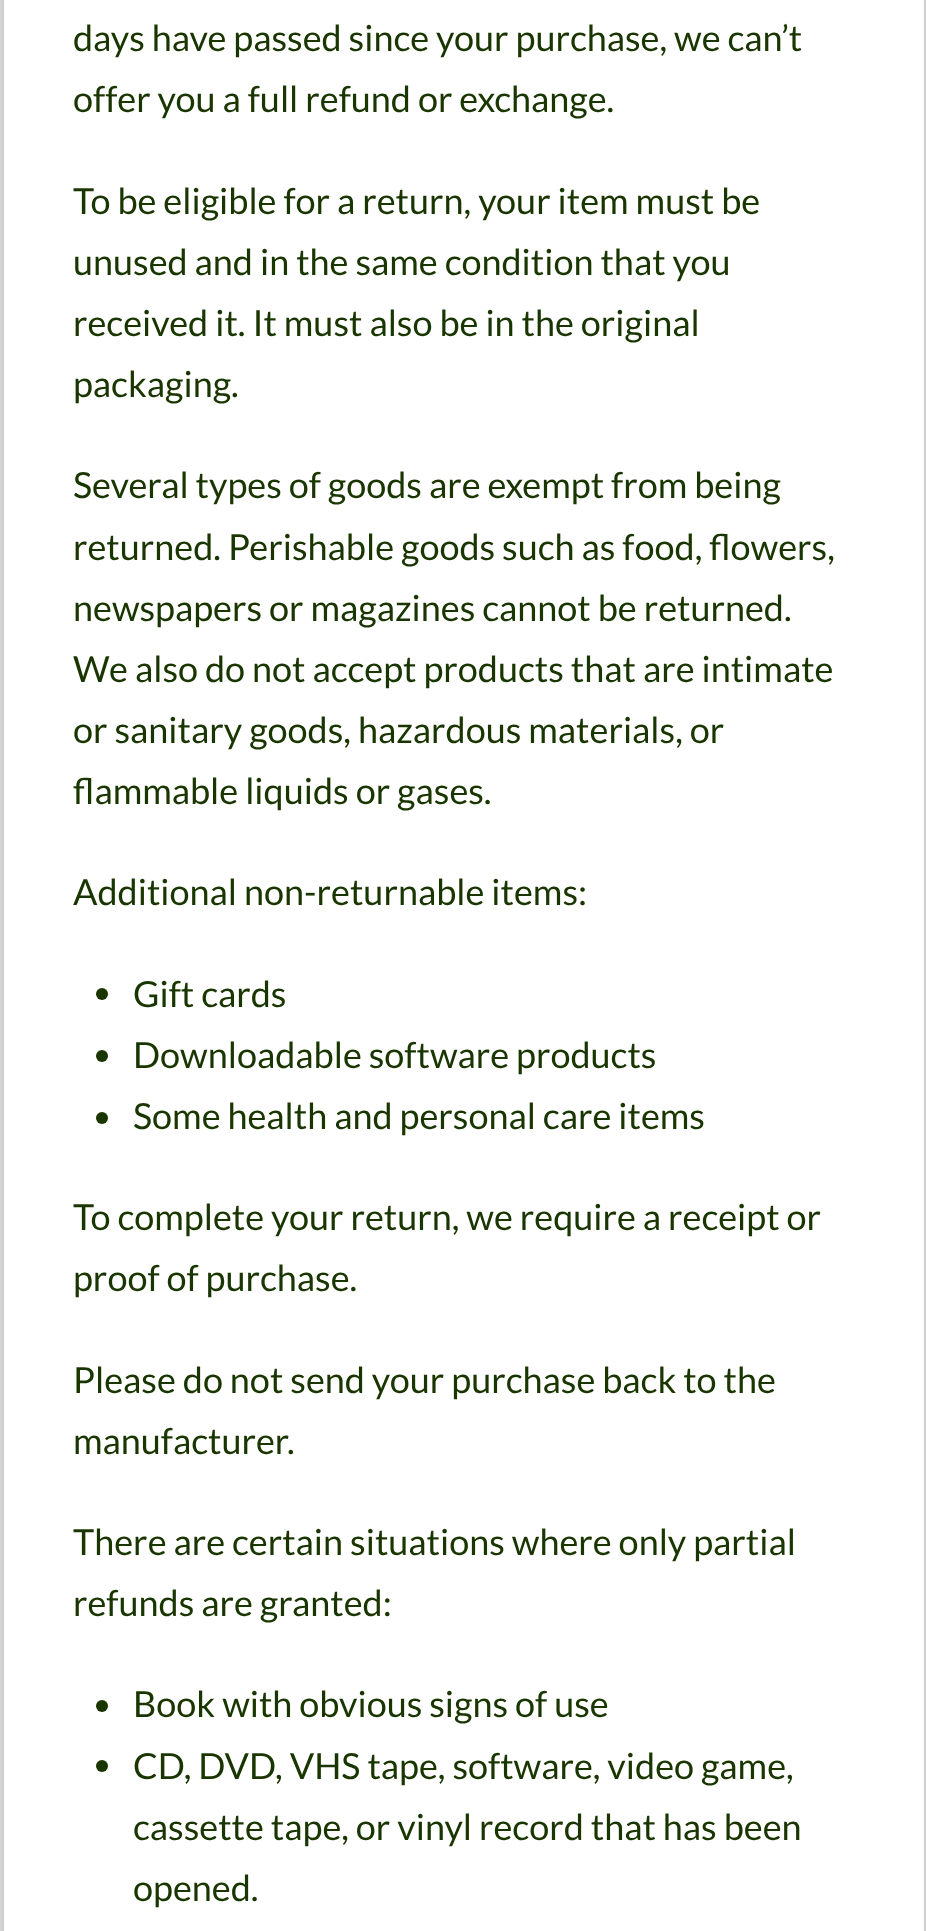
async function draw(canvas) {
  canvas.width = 926
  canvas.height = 1931
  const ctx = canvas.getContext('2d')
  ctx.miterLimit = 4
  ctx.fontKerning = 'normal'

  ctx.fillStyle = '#ddd'
  ctx.fillRect(0, 0, 926, 1931)
  ctx.fillStyle = '#00000026'
  ctx.filter = 'blur(5px)'
  ctx.beginPath()
  ctx.rect(4, -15, 920, 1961)
  ctx.fill()
  ctx.filter = 'none'
  ctx.fillStyle = '#fff'
  ctx.fillRect(4, 0, 920, 1931)
  ctx.font = '36px Lato'
  ctx.fillStyle = '#193500'
  ctx.fillText('days have passed since your purchase, we can’t', 73, 51)
  ctx.fillText('offer you a full refund or exchange.', 73, 112)
  ctx.fillText('To be eligible for a return, your item must be', 73, 214)
  ctx.fillText('unused and in the same condition that you', 73, 275)
  ctx.fillText('received it. It must also be in the original', 73, 336)
  ctx.fillText('packaging.', 73, 397)
  ctx.fillText('Several types of goods are exempt from being', 73, 498)
  ctx.fillText('returned. Perishable goods such as food, flowers,', 73, 560)
  ctx.fillText('newspapers or magazines cannot be returned.', 73, 621)
  ctx.fillText('We also do not accept products that are intimate', 73, 682)
  ctx.fillText('or sanitary goods, hazardous materials, or', 73, 743)
  ctx.fillText('flammable liquids or gases.', 73, 804)
  ctx.fillText('Additional non-returnable items:', 73, 905)
  ctx.beginPath()
  ctx.arc(102, 994, 6, 0, 2 * Math.PI)
  ctx.fill()
  ctx.fillText('Gift cards', 133, 1007)
  ctx.beginPath()
  ctx.arc(102, 1056, 6, 0, 2 * Math.PI)
  ctx.fill()
  ctx.fillText('Downloadable software products', 133, 1068)
  ctx.beginPath()
  ctx.arc(102, 1118, 6, 0, 2 * Math.PI)
  ctx.fill()
  ctx.fillText('Some health and personal care items', 133, 1129)
  ctx.fillText('To complete your return, we require a receipt or', 73, 1230)
  ctx.fillText('proof of purchase.', 73, 1291)
  ctx.fillText('Please do not send your purchase back to the', 73, 1393)
  ctx.fillText('manufacturer.', 73, 1454)
  ctx.fillText('There are certain situations where only partial', 73, 1555)
  ctx.fillText('refunds are granted:', 73, 1616)
  ctx.beginPath()
  ctx.arc(102, 1706, 6, 0, 2 * Math.PI)
  ctx.fill()
  ctx.fillText('Book with obvious signs of use', 133, 1717)
  ctx.beginPath()
  ctx.arc(102, 1766, 6, 0, 2 * Math.PI)
  ctx.fill()
  ctx.fillText('CD, DVD, VHS tape, software, video game,', 133, 1779)
  ctx.fillText('cassette tape, or vinyl record that has been', 133, 1840)
  ctx.fillText('opened.', 133, 1901)
}

draw(document.querySelector('canvas'))
